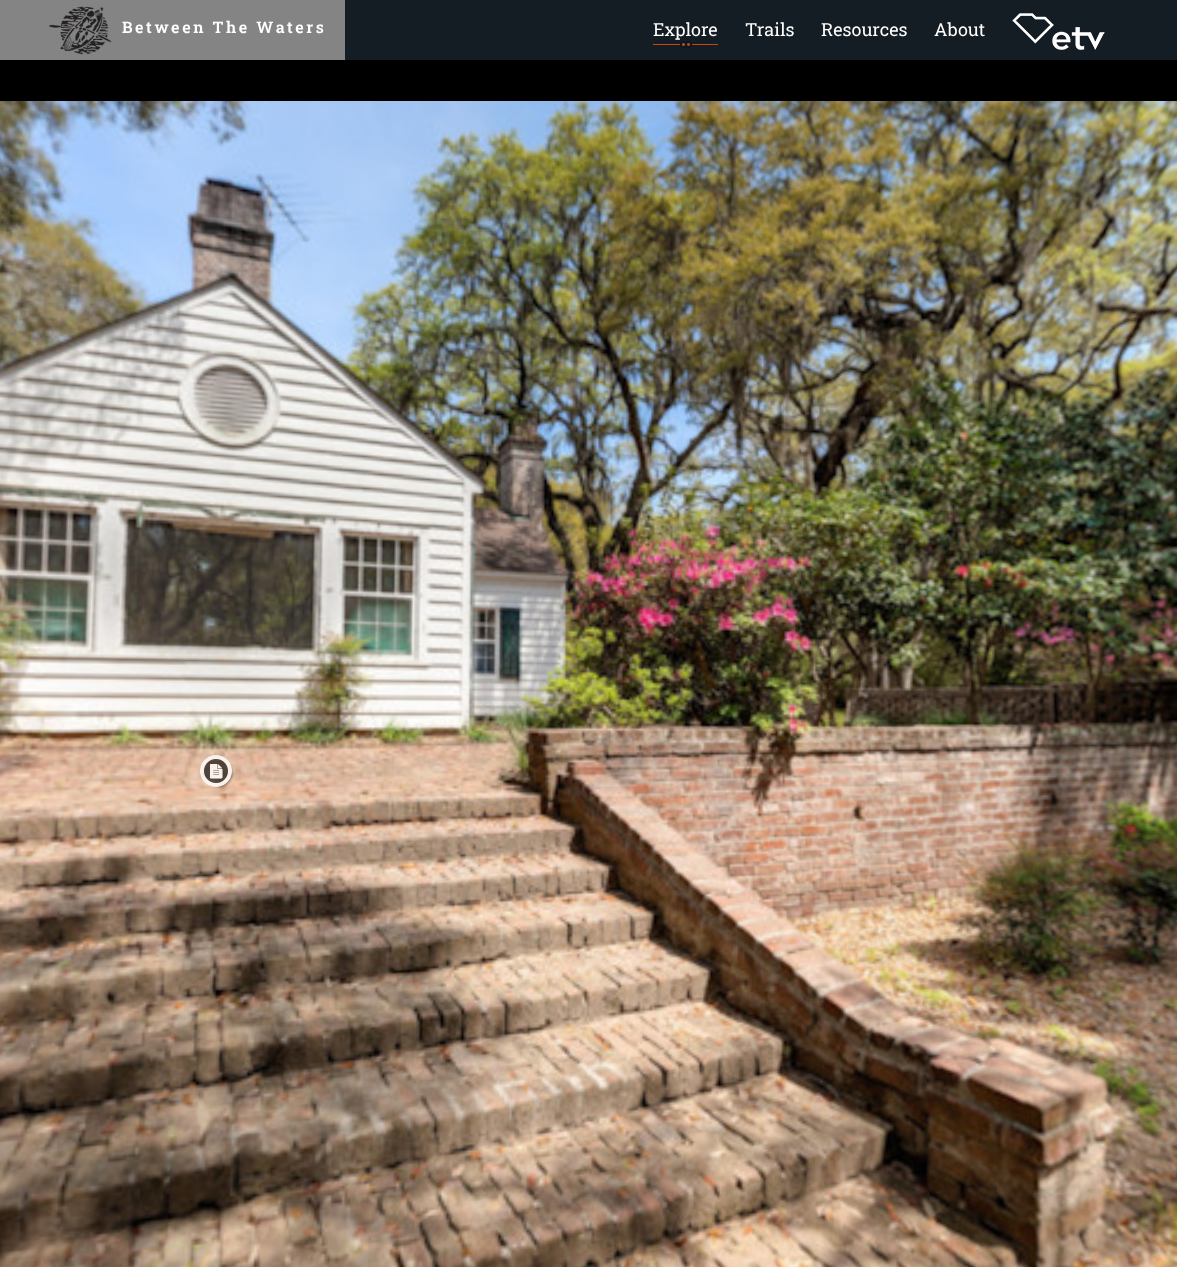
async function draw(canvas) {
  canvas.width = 1177
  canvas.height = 1267
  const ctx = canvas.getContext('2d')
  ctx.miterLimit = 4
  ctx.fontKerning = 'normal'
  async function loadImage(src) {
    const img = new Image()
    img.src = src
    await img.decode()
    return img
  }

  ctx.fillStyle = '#000'
  ctx.fillRect(0, 0, 1177, 1267)
  ctx.fillStyle = '#141d23'
  ctx.fillRect(345, 0, 832, 60)
  ctx.fillStyle = '#848484'
  ctx.fillRect(0, 0, 345, 60)
  ctx.drawImage(await loadImage('image0.png'), 49, 6, 63, 49)
  ctx.letterSpacing = '2.6px'
  ctx.font = '600 16px Roboto Slab'
  ctx.fillStyle = '#fff'
  ctx.fillText('Between The Waters', 122, 33)
  ctx.drawImage(await loadImage('image1.png'), 653, 41, 65, 7)
  ctx.letterSpacing = '0px'
  ctx.font = '18px Roboto Slab'
  ctx.fillText('Explore', 653, 36)
  ctx.fillText('Trails', 745, 36)
  ctx.fillText('Resources', 821, 36)
  ctx.fillText('About', 934, 36)
  ctx.drawImage(await loadImage('image2.png'), 1012, 13, 93, 37)
  ctx.drawImage(await loadImage('image3.png'), 0, 101, 1177, 1166)
  ctx.drawImage(await loadImage('image4.png'), 200, 755, 34, 34)
}

draw(document.querySelector('canvas'))
